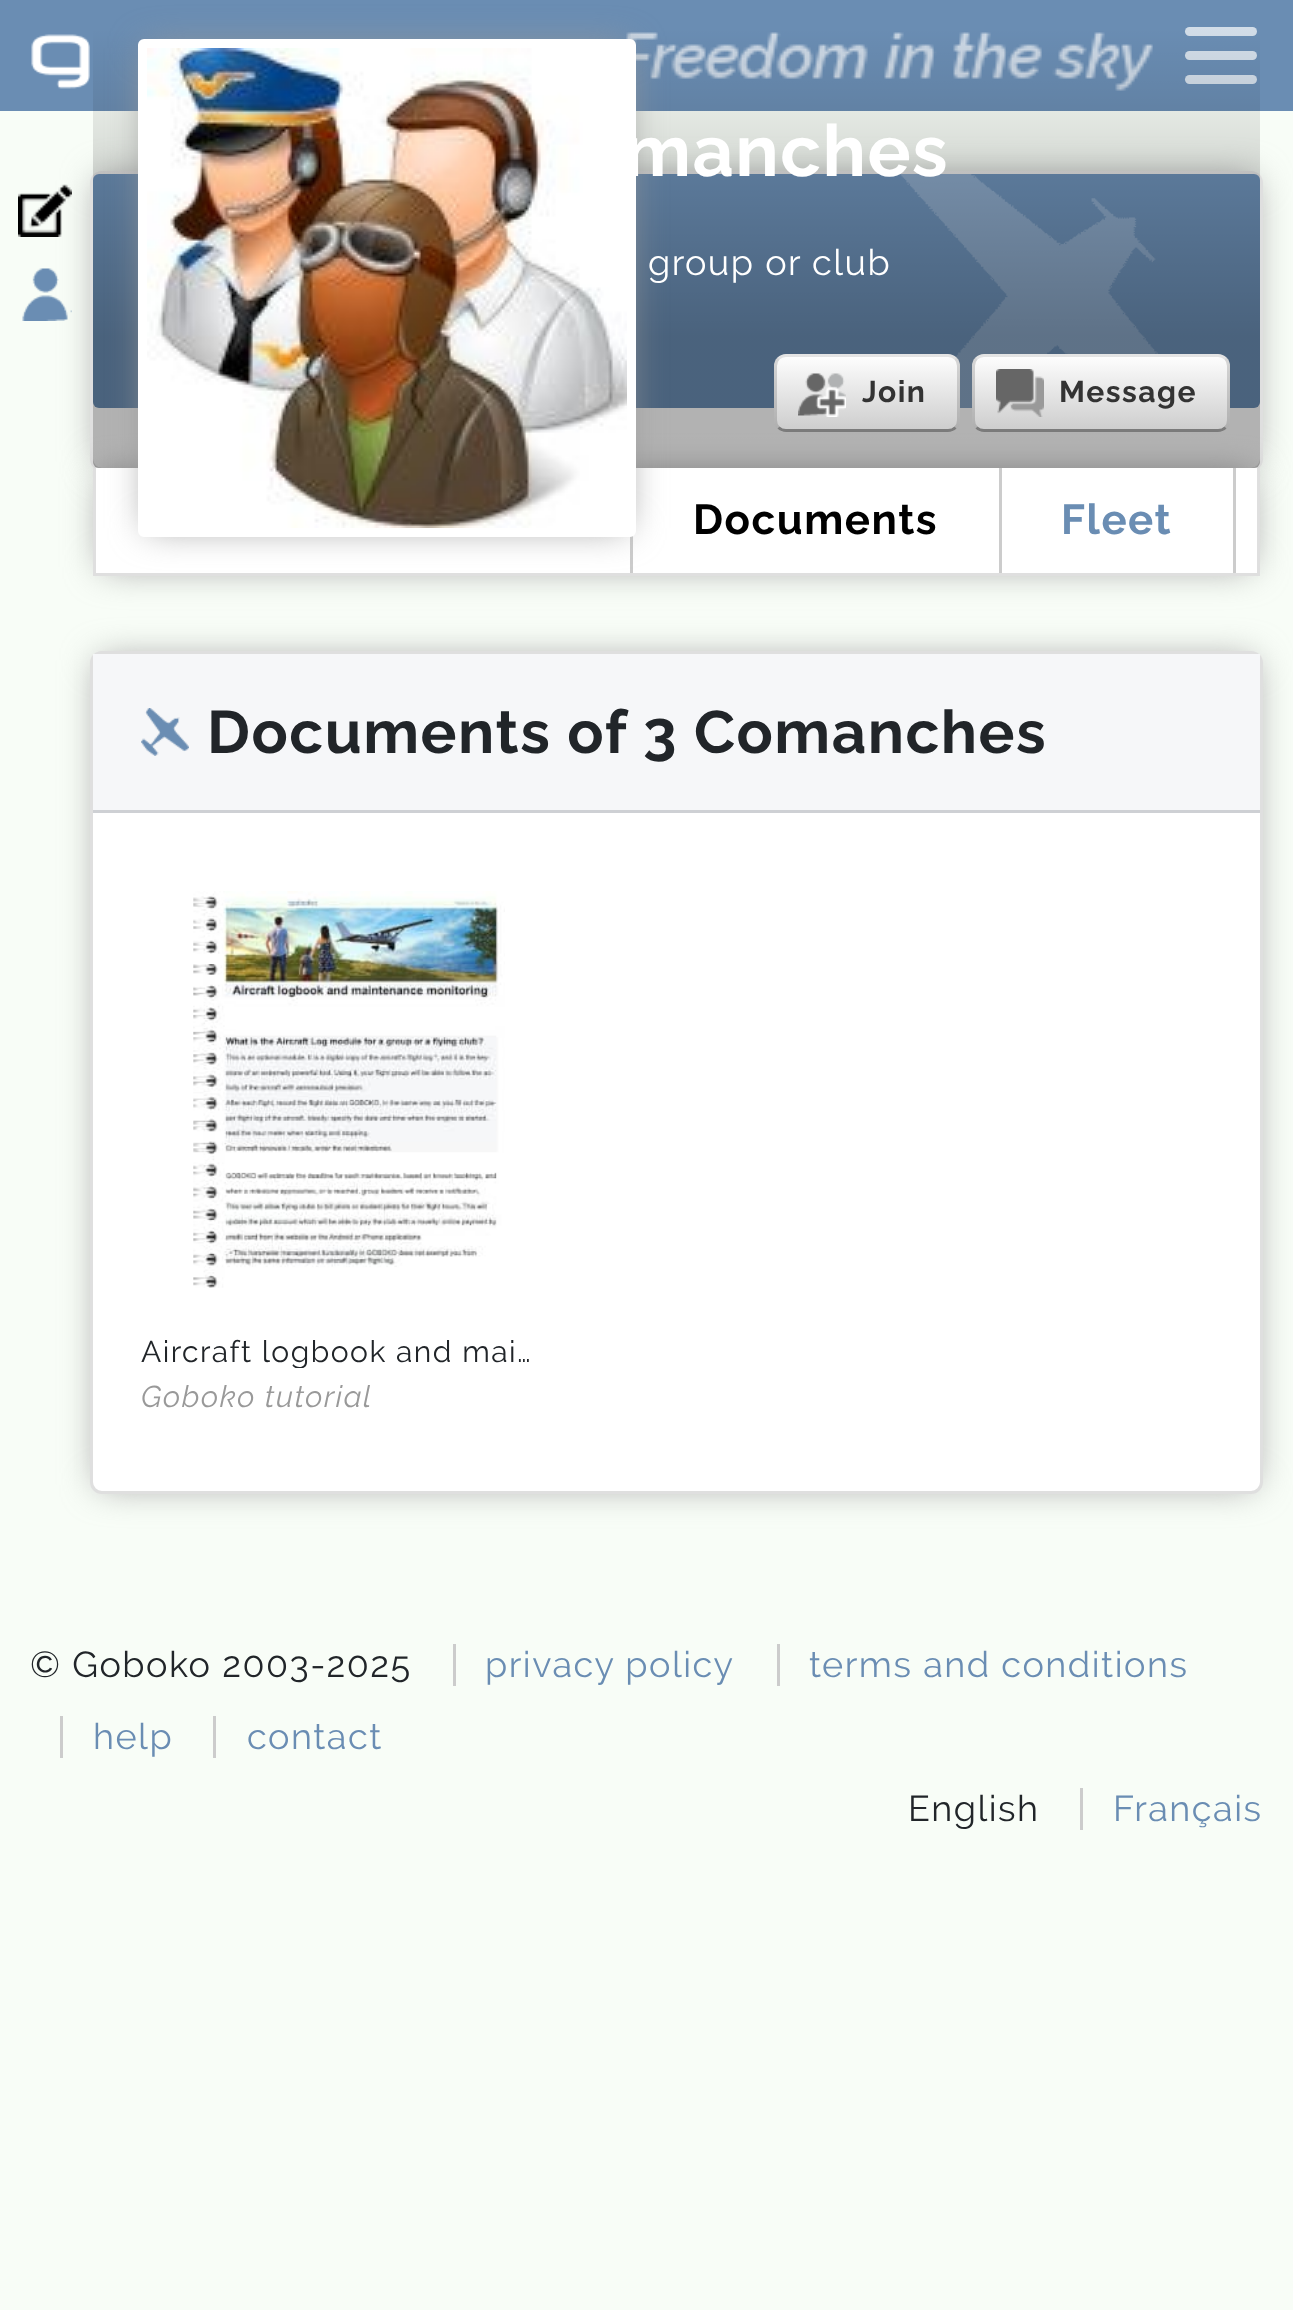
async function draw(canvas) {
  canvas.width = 1293
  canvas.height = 2310
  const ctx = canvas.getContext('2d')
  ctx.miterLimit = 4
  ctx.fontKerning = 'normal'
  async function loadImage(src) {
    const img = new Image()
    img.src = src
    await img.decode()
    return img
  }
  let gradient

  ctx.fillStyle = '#f8fdf7'
  ctx.fillRect(0, 0, 1293, 2310)
  ctx.fillStyle = '#6a8db3'
  ctx.fillRect(0, 0, 1293, 111)
  ctx.drawImage(await loadImage('image0.png'), 31, 34, 59, 55)
  ctx.drawImage(await loadImage('image1.png'), 626, 32, 527, 59)
  ctx.fillStyle = '#d2dde8'
  ctx.beginPath()
  ctx.roundRect(1185, 27, 72, 9, 4.5)
  ctx.fill()
  ctx.beginPath()
  ctx.roundRect(1185, 51, 72, 9, 4.5)
  ctx.fill()
  ctx.beginPath()
  ctx.roundRect(1185, 75, 72, 9, 4.5)
  ctx.fill()
  ctx.fillStyle = '#999'
  ctx.filter = 'blur(18px)'
  ctx.beginPath()
  ctx.roundRect(99, 180, 1155, 282, 1.5)
  ctx.fill()
  ctx.filter = 'none'
  ctx.drawImage(await loadImage('image2.png'), 18, 184, 54, 53)
  ctx.drawImage(await loadImage('image3.png'), 22, 268, 50, 53)
  ctx.fillStyle = '#fff'
  ctx.beginPath()
  ctx.roundRect(91.5, 172.5, 1170, 297, 10.5)
  ctx.fill()
  ctx.strokeStyle = '#dfdfdf'
  ctx.lineWidth = 3
  ctx.stroke()
  ctx.drawImage(await loadImage('image7.png'), 93, 174, 1167, 234)
  ctx.fillStyle = '#999'
  ctx.filter = 'blur(18px)'
  ctx.beginPath()
  ctx.rect(102, 477, 1149, 90)
  ctx.fill()
  ctx.filter = 'none'
  gradient = ctx.createLinearGradient(677, 27, 677, 468)
  gradient.addColorStop(0, '#00000000')
  gradient.addColorStop(0.7, '#0000004d')
  ctx.fillStyle = gradient
  ctx.beginPath()
  ctx.roundRect(93, 27, 1167, 441, [0, 0, 6, 6])
  ctx.fill()
  ctx.fillStyle = '#fff'
  ctx.fillRect(96, 468, 1161, 105)
  ctx.fillStyle = '#dfdfdf'
  ctx.fillRect(1257, 468, 3, 108)
  ctx.fillRect(93, 573, 1167, 3)
  ctx.fillRect(93, 468, 3, 108)
  ctx.fillStyle = '#ccc'
  ctx.fillRect(630, 536, 3, 37)
  ctx.fillStyle = '#999'
  ctx.filter = 'blur(18px)'
  ctx.beginPath()
  ctx.rect(147, 48, 480, 480)
  ctx.fill()
  ctx.filter = 'none'
  ctx.drawImage(await loadImage('image4.png'), 147, 48, 480, 480)
  ctx.beginPath()
  ctx.roundRect(142.5, 43.5, 489, 489, 1.5)
  ctx.strokeStyle = '#fff'
  ctx.lineWidth = 9
  ctx.stroke()
  ctx.letterSpacing = '1.5px'
  ctx.font = 'bold 72px Raleway'
  ctx.fillStyle = '#fff'
  ctx.fillText('manches', 624, 176)
  ctx.font = '36px Raleway'
  ctx.fillText('group or club', 648, 275)
  gradient = ctx.createLinearGradient(867, 354, 867, 432)
  gradient.addColorStop(0, '#fff')
  gradient.addColorStop(1, '#ccc')
  ctx.fillStyle = gradient
  ctx.beginPath()
  ctx.roundRect(774, 354, 186, 78, 12)
  ctx.fill()
  ctx.drawImage(await loadImage('image5.png'), 798, 373, 48, 44)
  ctx.beginPath()
  ctx.moveTo(778.5, 358.5)
  ctx.bezierCurveTo(780.5, 356.5, 783, 355.5, 786, 355.5)
  ctx.lineTo(948, 355.5)
  ctx.bezierCurveTo(951, 355.5, 953.5, 356.5, 955.5, 358.5)
  ctx.strokeStyle = '#0000001a'
  ctx.lineWidth = 3
  ctx.stroke()
  ctx.beginPath()
  ctx.moveTo(955.5, 358.5)
  ctx.bezierCurveTo(957.5, 360.5, 958.5, 363, 958.5, 366)
  ctx.lineTo(958.5, 420)
  ctx.bezierCurveTo(958.5, 423, 957.5, 425.5, 955.5, 427.5)
  ctx.strokeStyle = '#00000026'
  ctx.stroke()
  ctx.beginPath()
  ctx.moveTo(955.5, 427.5)
  ctx.bezierCurveTo(953.5, 429.5, 951, 430.5, 948, 430.5)
  ctx.lineTo(786, 430.5)
  ctx.bezierCurveTo(783, 430.5, 780.5, 429.5, 778.5, 427.5)
  ctx.strokeStyle = '#00000066'
  ctx.stroke()
  ctx.beginPath()
  ctx.moveTo(778.5, 427.5)
  ctx.bezierCurveTo(776.5, 425.5, 775.5, 423, 775.5, 420)
  ctx.lineTo(775.5, 366)
  ctx.bezierCurveTo(775.5, 363, 776.5, 360.5, 778.5, 358.5)
  ctx.strokeStyle = '#00000026'
  ctx.stroke()
  ctx.font = 'bold 30px Raleway'
  ctx.fillStyle = '#333'
  ctx.fillText('Join', 862, 402)
  gradient = ctx.createLinearGradient(1101, 354, 1101, 432)
  gradient.addColorStop(0, '#fff')
  gradient.addColorStop(1, '#ccc')
  ctx.fillStyle = gradient
  ctx.beginPath()
  ctx.roundRect(972, 354, 258, 78, 12)
  ctx.fill()
  ctx.drawImage(await loadImage('image6.png'), 996, 369, 48, 48)
  ctx.beginPath()
  ctx.moveTo(976.5, 358.5)
  ctx.bezierCurveTo(978.5, 356.5, 981, 355.5, 984, 355.5)
  ctx.lineTo(1218, 355.5)
  ctx.bezierCurveTo(1221, 355.5, 1223.5, 356.5, 1225.5, 358.5)
  ctx.strokeStyle = '#0000001a'
  ctx.stroke()
  ctx.beginPath()
  ctx.moveTo(1225.5, 358.5)
  ctx.bezierCurveTo(1227.5, 360.5, 1228.5, 363, 1228.5, 366)
  ctx.lineTo(1228.5, 420)
  ctx.bezierCurveTo(1228.5, 423, 1227.5, 425.5, 1225.5, 427.5)
  ctx.strokeStyle = '#00000026'
  ctx.stroke()
  ctx.beginPath()
  ctx.moveTo(1225.5, 427.5)
  ctx.bezierCurveTo(1223.5, 429.5, 1221, 430.5, 1218, 430.5)
  ctx.lineTo(984, 430.5)
  ctx.bezierCurveTo(981, 430.5, 978.5, 429.5, 976.5, 427.5)
  ctx.strokeStyle = '#00000066'
  ctx.stroke()
  ctx.beginPath()
  ctx.moveTo(976.5, 427.5)
  ctx.bezierCurveTo(974.5, 425.5, 973.5, 423, 973.5, 420)
  ctx.lineTo(973.5, 366)
  ctx.bezierCurveTo(973.5, 363, 974.5, 360.5, 976.5, 358.5)
  ctx.strokeStyle = '#00000026'
  ctx.stroke()
  ctx.fillStyle = '#333'
  ctx.fillText('Message', 1059, 402)
  ctx.font = 'bold 42px Raleway'
  ctx.fillStyle = '#000'
  ctx.fillText('Documents', 693, 534)
  ctx.fillStyle = '#ccc'
  ctx.fillRect(999, 468, 3, 105)
  ctx.fillStyle = '#6a8db3'
  ctx.fillText('Fleet', 1061, 534)
  ctx.fillStyle = '#ccc'
  ctx.fillRect(1233, 468, 3, 105)
  ctx.fillStyle = '#999'
  ctx.filter = 'blur(18px)'
  ctx.beginPath()
  ctx.roundRect(99, 660, 1155, 825, 1.5)
  ctx.fill()
  ctx.filter = 'none'
  ctx.fillStyle = '#fff'
  ctx.beginPath()
  ctx.roundRect(91.5, 652.5, 1170, 840, 10.5)
  ctx.fill()
  ctx.strokeStyle = '#dfdfdf'
  ctx.stroke()
  ctx.fillStyle = '#f6f7f9'
  ctx.fillRect(93, 654, 1167, 156)
  ctx.fillStyle = '#ced0d4'
  ctx.fillRect(93, 810, 1167, 3)
  ctx.drawImage(await loadImage('image8.png'), 141, 708, 48, 48)
  ctx.font = 'bold 60px Raleway'
  ctx.fillStyle = '#212529'
  ctx.fillText('Documents of 3 Comanches', 207, 753)
  ctx.drawImage(await loadImage('image9.png'), 193, 891, 312, 397)
  ctx.save()
  ctx.beginPath()
  ctx.rect(141, 1338, 402, 30)
  ctx.clip()
  ctx.font = '30px Raleway'
  ctx.fillText('Aircraft logbook and mai…', 141, 1362)
  ctx.restore()
  ctx.font = 'italic 30px Raleway'
  ctx.fillStyle = '#999'
  ctx.fillText('Goboko tutorial', 141, 1407)
  ctx.font = '36px Raleway'
  ctx.fillStyle = '#212529'
  ctx.fillText('© Goboko 2003-2025', 30, 1677)
  ctx.fillStyle = '#ccc'
  ctx.fillRect(453, 1644, 3, 42)
  ctx.fillStyle = '#6a8db3'
  ctx.fillText('privacy policy', 485, 1677)
  ctx.fillStyle = '#ccc'
  ctx.fillRect(777, 1644, 3, 42)
  ctx.fillStyle = '#6a8db3'
  ctx.fillText('terms and conditions', 809, 1677)
  ctx.fillStyle = '#ccc'
  ctx.fillRect(60, 1716, 3, 42)
  ctx.fillStyle = '#6a8db3'
  ctx.fillText('help', 93, 1749)
  ctx.fillStyle = '#ccc'
  ctx.fillRect(213, 1716, 3, 42)
  ctx.fillStyle = '#6a8db3'
  ctx.fillText('contact', 247, 1749)
  ctx.fillStyle = '#212529'
  ctx.fillText('English', 908, 1821)
  ctx.fillStyle = '#ccc'
  ctx.fillRect(1080, 1788, 3, 42)
  ctx.fillStyle = '#6a8db3'
  ctx.fillText('Français', 1113, 1821)
}

draw(document.querySelector('canvas'))
